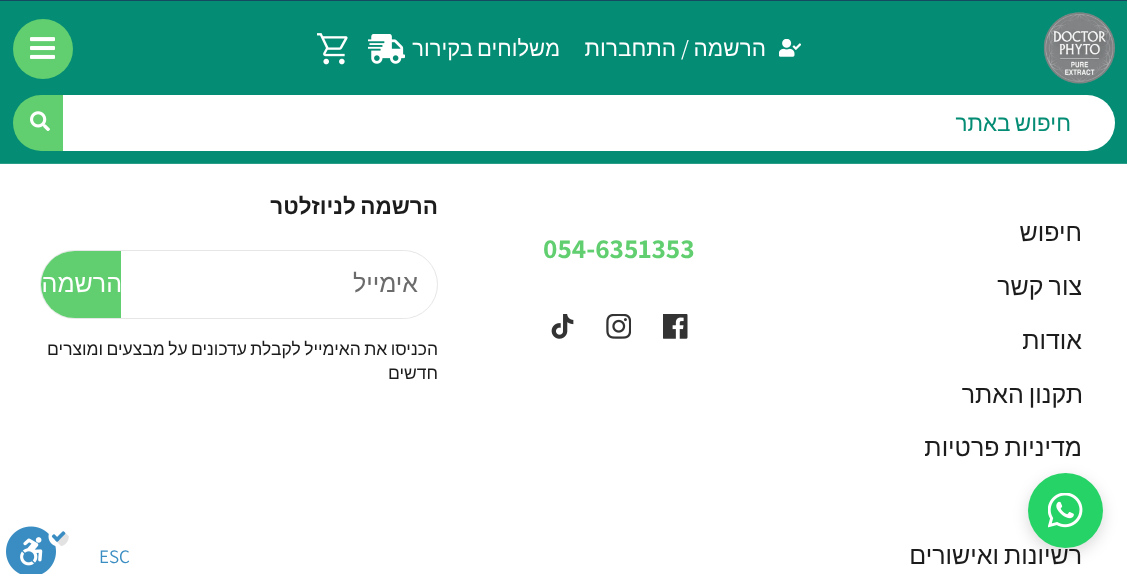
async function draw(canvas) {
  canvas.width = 1127
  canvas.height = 574
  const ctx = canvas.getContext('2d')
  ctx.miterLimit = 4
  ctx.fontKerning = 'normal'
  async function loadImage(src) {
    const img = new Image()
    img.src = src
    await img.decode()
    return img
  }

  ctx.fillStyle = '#fff'
  ctx.fillRect(0, 0, 1127, 574)
  ctx.fillStyle = '#048c74'
  ctx.fillRect(0, 1, 1127, 162)
  ctx.fillStyle = '#2a9d89'
  ctx.fillRect(0, 163, 1127, 1)
  ctx.drawImage(await loadImage('image0.png'), 1043, 12, 72, 72)
  ctx.drawImage(await loadImage('image1.png'), 779, 39, 22, 18)
  ctx.direction = 'rtl'
  ctx.font = '22.5px Liberation Sans'
  ctx.fillStyle = '#fff'
  ctx.fillText('הרשמה', 766, 56)
  ctx.font = '22.5px Assistant'
  ctx.fillText('/', 689, 56)
  ctx.font = '22.5px Liberation Sans'
  ctx.fillText('התחברות', 676, 56)
  ctx.wordSpacing = '-2px'
  ctx.font = '22px Liberation Sans'
  ctx.fillText('משלוחים בקירור', 560, 56)
  ctx.drawImage(await loadImage('image2.png'), 368, 34, 37, 30)
  ctx.drawImage(await loadImage('image3.png'), 317, 33, 31, 32)
  ctx.beginPath()
  ctx.roundRect(63, 95, 1052, 56, [0, 28, 28, 0])
  ctx.fill()
  ctx.font = '22.5px Liberation Sans'
  ctx.fillStyle = '#048c74'
  ctx.fillText('חיפוש באתר', 1071, 131)
  ctx.fillStyle = '#61ce70'
  ctx.beginPath()
  ctx.roundRect(13, 95, 50, 56, [28, 0, 0, 28])
  ctx.fill()
  ctx.drawImage(await loadImage('image4.png'), 30, 111, 20, 20)
  ctx.beginPath()
  ctx.arc(43, 49, 30, 0, 2 * Math.PI)
  ctx.fill()
  ctx.drawImage(await loadImage('image5.png'), 30, 37, 25, 22)
  ctx.wordSpacing = '0px'
  ctx.font = '25px Liberation Sans'
  ctx.fillStyle = '#1c1c1c'
  ctx.fillText('חיפוש', 1082, 241)
  ctx.wordSpacing = '-2px'
  ctx.fillText('צור קשר', 1082, 295)
  ctx.wordSpacing = '0px'
  ctx.fillText('אודות', 1082, 349)
  ctx.wordSpacing = '-2px'
  ctx.fillText('תקנון האתר', 1083, 403)
  ctx.fillText('מדיניות פרטיות', 1082, 456)
  ctx.fillText('רשיונות ואישורים', 1082, 564)
  ctx.wordSpacing = '0px'
  ctx.direction = 'ltr'
  ctx.font = 'bold 27.5px Assistant'
  ctx.fillStyle = '#61cf70'
  ctx.fillText('054-6351353', 543, 258)
  ctx.drawImage(await loadImage('image6.png'), 663, 314, 25, 25)
  ctx.drawImage(await loadImage('image7.png'), 606, 314, 25, 25)
  ctx.drawImage(await loadImage('image8.png'), 551, 314, 23, 25)
  ctx.wordSpacing = '-2px'
  ctx.direction = 'rtl'
  ctx.font = 'bold 22.5px Liberation Sans'
  ctx.fillStyle = '#1c1c1c'
  ctx.fillText('הרשמה לניוזלטר', 438, 214)
  ctx.beginPath()
  ctx.roundRect(40.5, 250.5, 397, 68, 34)
  ctx.strokeStyle = '#e6e6e6'
  ctx.stroke()
  ctx.fillStyle = '#fff'
  ctx.beginPath()
  ctx.roundRect(121, 251, 315, 67, [0, 33.5, 33.5, 0])
  ctx.fill()
  ctx.wordSpacing = '0px'
  ctx.font = '25px Liberation Sans'
  ctx.fillStyle = '#6b6b6b'
  ctx.fillText('אימייל', 418, 292)
  ctx.fillStyle = '#61cf70'
  ctx.beginPath()
  ctx.roundRect(41, 251, 80, 67, [33.5, 0, 0, 33.5])
  ctx.fill()
  ctx.fillStyle = '#fff'
  ctx.fillText('הרשמה', 122, 292)
  ctx.wordSpacing = '-1.5px'
  ctx.font = '17.5px Liberation Sans'
  ctx.fillStyle = '#1c1c1c'
  ctx.fillText('הכניסו את האימייל לקבלת עדכונים על מבצעים ומוצרים', 438, 355)
  ctx.wordSpacing = '0px'
  ctx.fillText('חדשים', 438, 379)
  ctx.fillStyle = '#00000026'
  ctx.filter = 'blur(7.5px)'
  ctx.beginPath()
  ctx.roundRect(1028, 478, 75, 75, 37.5)
  ctx.fill()
  ctx.filter = 'none'
  ctx.fillStyle = '#25d366'
  ctx.beginPath()
  ctx.arc(1065.5, 510.5, 37.5, 0, 2 * Math.PI)
  ctx.fill()
  ctx.drawImage(await loadImage('image9.png'), 1048, 493, 35, 35)
  ctx.fillStyle = '#15495f'
  ctx.fillRect(0, 0, 1127, 1)
  ctx.direction = 'ltr'
  ctx.font = '19px Assistant'
  ctx.fillStyle = '#3a8dc2'
  ctx.fillText('ESC', 99, 563)
  ctx.drawImage(await loadImage('image10.png'), 6, 526, 63, 48)
}

draw(document.querySelector('canvas'))
